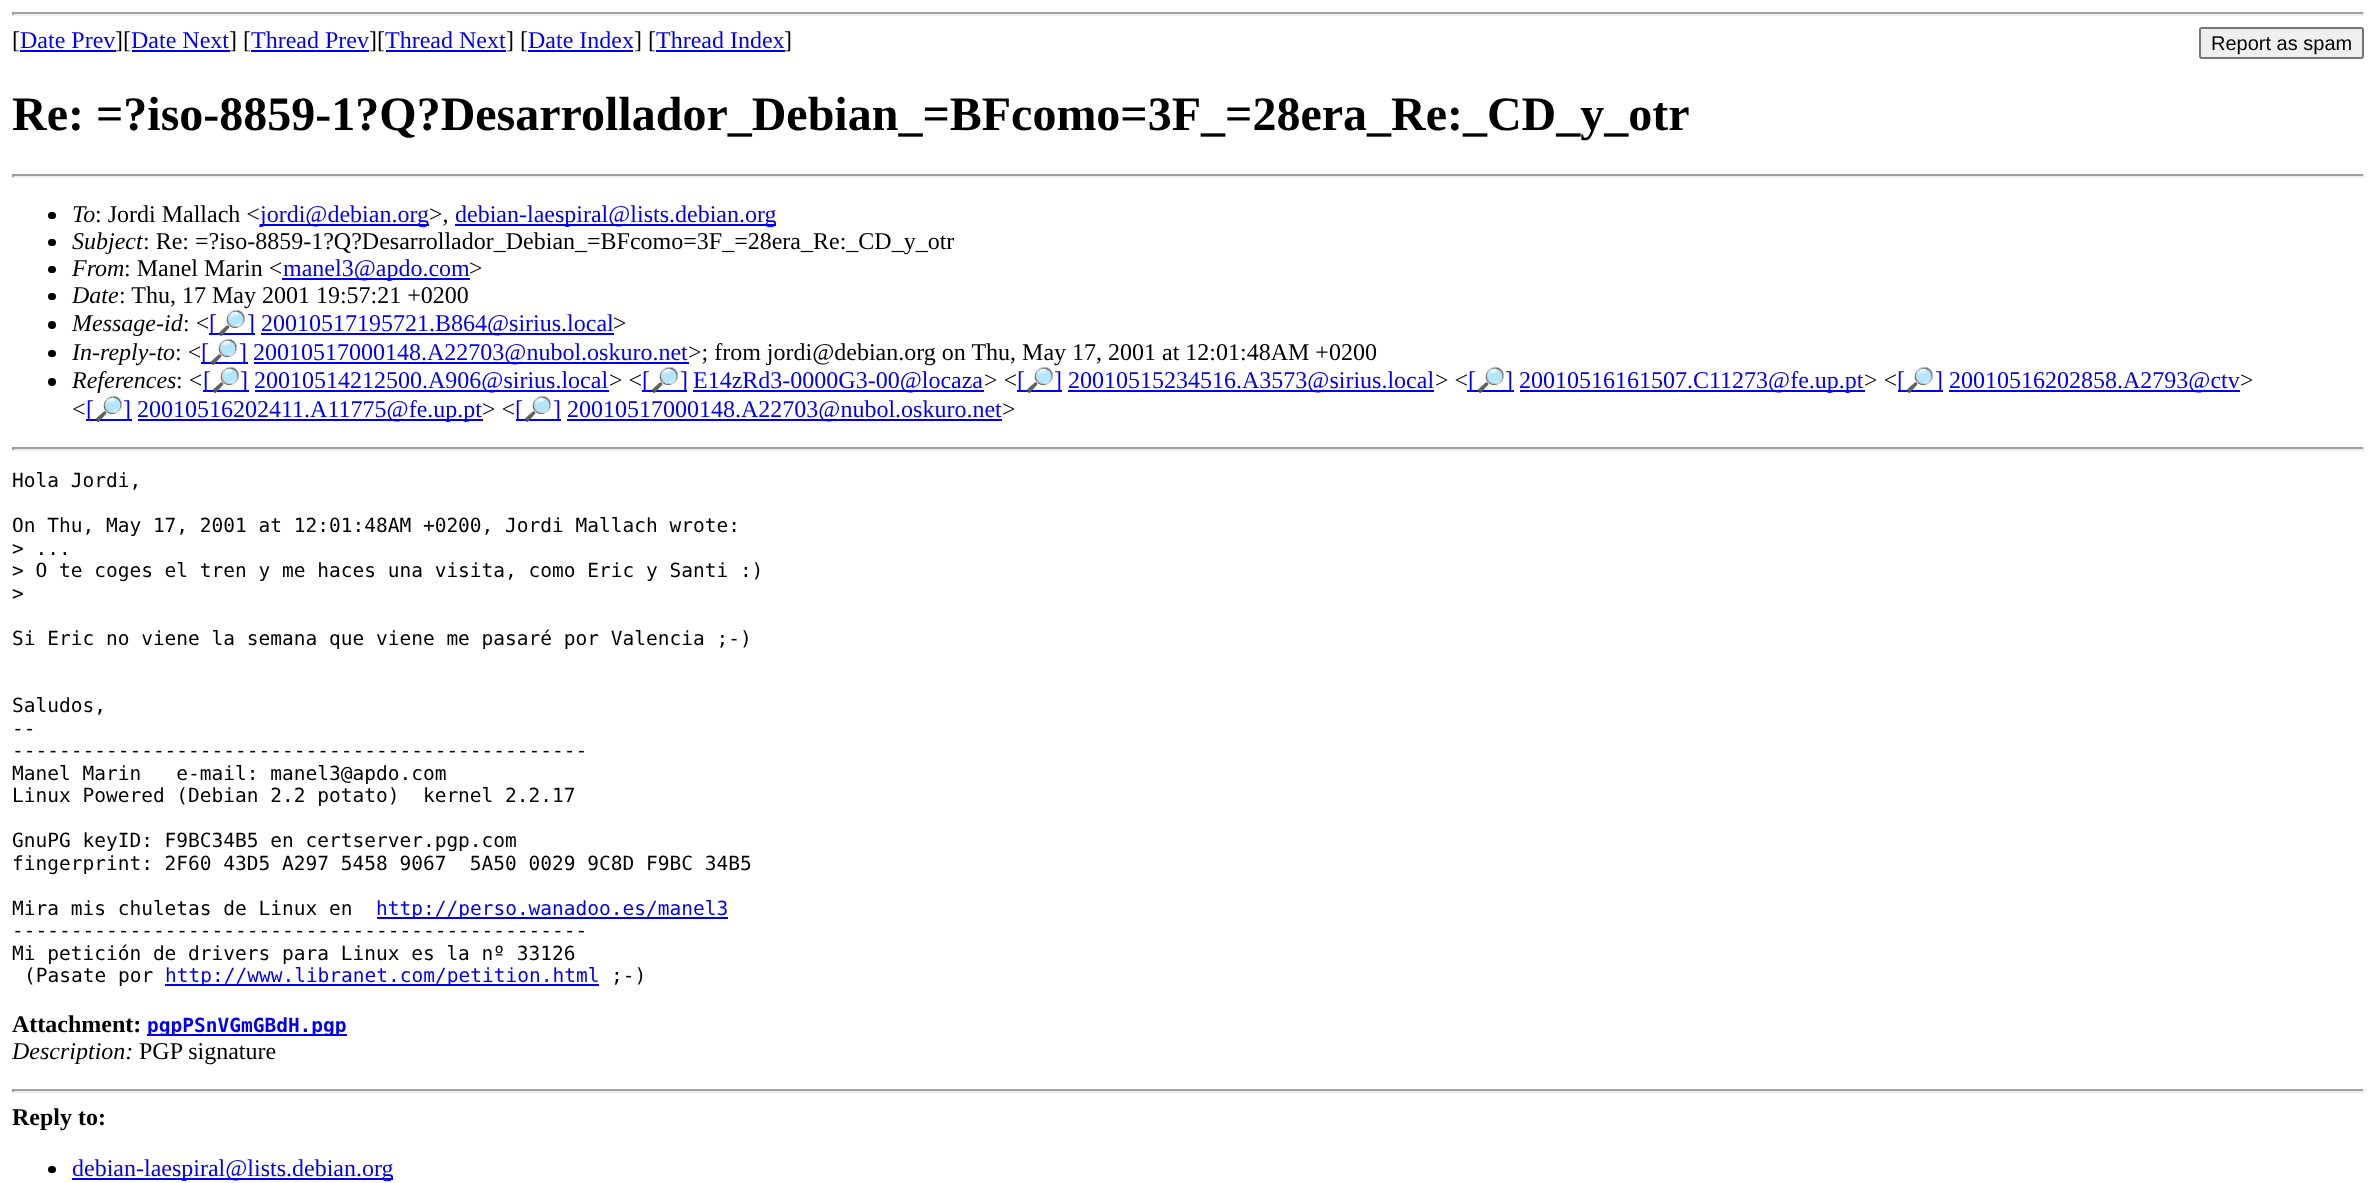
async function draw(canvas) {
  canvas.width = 2376
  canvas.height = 1183
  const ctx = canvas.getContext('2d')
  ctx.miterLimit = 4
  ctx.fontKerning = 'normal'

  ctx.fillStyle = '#fff'
  ctx.fillRect(0, 0, 2376, 1183)
  ctx.fillStyle = '#9f9f9f'
  ctx.fillRect(12, 12, 2352, 2)
  ctx.fillStyle = '#eee'
  ctx.fillRect(2363, 12, 2, 3)
  ctx.fillRect(12, 14, 2352, 2)
  ctx.fillStyle = '#9f9f9f'
  ctx.fillRect(12, 12, 2, 3)
  ctx.font = '24px Liberation Serif'
  ctx.fillStyle = '#000'
  ctx.fillText('[', 12, 48)
  ctx.fillStyle = '#00e'
  ctx.fillText('Date Prev', 20, 48)
  ctx.fillRect(20, 50, 96, 2)
  ctx.fillStyle = '#000'
  ctx.fillText('][', 115, 48)
  ctx.fillStyle = '#00e'
  ctx.fillText('Date Next', 131, 48)
  ctx.fillRect(132, 50, 98, 2)
  ctx.fillStyle = '#000'
  ctx.fillText('] [', 229, 48)
  ctx.fillStyle = '#00e'
  ctx.fillText('Thread Prev', 251, 48)
  ctx.fillRect(251, 50, 118, 2)
  ctx.fillStyle = '#000'
  ctx.fillText('][', 369, 48)
  ctx.fillStyle = '#00e'
  ctx.fillText('Thread Next', 385, 48)
  ctx.fillRect(386, 50, 120, 2)
  ctx.fillStyle = '#000'
  ctx.fillText('] [', 506, 48)
  ctx.fillStyle = '#00e'
  ctx.fillText('Date Index', 528, 48)
  ctx.fillRect(528, 50, 105, 2)
  ctx.fillStyle = '#000'
  ctx.fillText('] [', 634, 48)
  ctx.fillStyle = '#00e'
  ctx.fillText('Thread Index', 656, 48)
  ctx.fillRect(656, 50, 129, 2)
  ctx.fillStyle = '#000'
  ctx.fillText(']', 784, 48)
  ctx.fillStyle = '#efefef'
  ctx.beginPath()
  ctx.roundRect(2200, 28, 163, 30, 2)
  ctx.fill()
  ctx.strokeStyle = '#767676'
  ctx.lineWidth = 2
  ctx.stroke()
  ctx.font = '20px Liberation Sans'
  ctx.fillStyle = '#000'
  ctx.fillText('Report as spam', 2211, 50)
  ctx.font = 'bold 48px Liberation Serif'
  ctx.fillText('Re: =?iso-8859-1?Q?Desarrollador_Debian_=BFcomo=3F_=28era_Re:_CD_y_otr', 12, 130)
  ctx.fillStyle = '#9f9f9f'
  ctx.fillRect(12, 174, 2352, 2)
  ctx.fillStyle = '#eee'
  ctx.fillRect(2363, 174, 2, 3)
  ctx.fillRect(12, 176, 2352, 2)
  ctx.fillStyle = '#9f9f9f'
  ctx.fillRect(12, 174, 2, 3)
  ctx.fillStyle = '#000'
  ctx.beginPath()
  ctx.roundRect(48, 212, 8, 7, 3.5)
  ctx.fill()
  ctx.font = 'italic 24px Liberation Serif'
  ctx.fillText('To', 72, 222)
  ctx.font = '24px Liberation Serif'
  ctx.fillText(': Jordi Mallach <', 95, 222)
  ctx.fillStyle = '#00e'
  ctx.fillRect(260, 224, 169, 2)
  ctx.fillText('jordi@debian.org', 260, 222)
  ctx.fillStyle = '#000'
  ctx.fillText('>,', 429, 222)
  ctx.fillStyle = '#00e'
  ctx.fillRect(455, 224, 321, 2)
  ctx.fillText('debian-laespiral@lists.debian.org', 455, 222)
  ctx.fillStyle = '#000'
  ctx.beginPath()
  ctx.roundRect(48, 239, 8, 7, 3.5)
  ctx.fill()
  ctx.font = 'italic 24px Liberation Serif'
  ctx.fillText('Subject', 72, 249)
  ctx.font = '24px Liberation Serif'
  ctx.fillText(': Re: =?iso-8859-1?Q?Desarrollador_Debian_=BFcomo=3F_=28era_Re:_CD_y_otr', 143, 249)
  ctx.beginPath()
  ctx.roundRect(48, 266, 8, 7, 3.5)
  ctx.fill()
  ctx.font = 'italic 24px Liberation Serif'
  ctx.fillText('From', 72, 276)
  ctx.font = '24px Liberation Serif'
  ctx.fillText(': Manel Marin <', 124, 276)
  ctx.fillStyle = '#00e'
  ctx.fillRect(282, 278, 188, 2)
  ctx.fillText('manel3@apdo.com', 283, 276)
  ctx.fillStyle = '#000'
  ctx.fillText('>', 469, 276)
  ctx.beginPath()
  ctx.roundRect(48, 293, 8, 7, 3.5)
  ctx.fill()
  ctx.font = 'italic 24px Liberation Serif'
  ctx.fillText('Date', 72, 303)
  ctx.font = '24px Liberation Serif'
  ctx.fillText(': Thu, 17 May 2001 19:57:21 +0200', 119, 303)
  ctx.beginPath()
  ctx.arc(52, 325, 4, 0, 2 * Math.PI)
  ctx.fill()
  ctx.font = 'italic 24px Liberation Serif'
  ctx.fillText('Message-id', 72, 331)
  ctx.font = '24px Liberation Serif'
  ctx.fillText(': <', 183, 331)
  ctx.fillStyle = '#00e'
  ctx.fillRect(209, 333, 46, 2)
  ctx.fillText('[', 209, 331)
  ctx.font = '24px Noto Color Emoji'
  ctx.fillText('🔎', 217, 331)
  ctx.font = '24px Liberation Serif'
  ctx.fillText(']', 247, 331)
  ctx.fillRect(261, 333, 353, 2)
  ctx.fillText('20010517195721.B864@sirius.local', 261, 331)
  ctx.fillStyle = '#000'
  ctx.fillText('>', 613, 331)
  ctx.beginPath()
  ctx.roundRect(48, 350, 8, 7, 3.5)
  ctx.fill()
  ctx.font = 'italic 24px Liberation Serif'
  ctx.fillText('In-reply-to', 72, 360)
  ctx.font = '24px Liberation Serif'
  ctx.fillText(': <', 175, 360)
  ctx.fillStyle = '#00e'
  ctx.fillRect(201, 362, 47, 2)
  ctx.fillText('[', 201, 360)
  ctx.font = '24px Noto Color Emoji'
  ctx.fillText('🔎', 209, 360)
  ctx.font = '24px Liberation Serif'
  ctx.fillText(']', 239, 360)
  ctx.fillRect(254, 362, 435, 2)
  ctx.fillText('20010517000148.A22703@nubol.oskuro.net', 253, 360)
  ctx.fillStyle = '#000'
  ctx.fillText('>; from jordi@debian.org on Thu, May 17, 2001 at 12:01:48AM +0200', 688, 360)
  ctx.beginPath()
  ctx.arc(52, 382, 4, 0, 2 * Math.PI)
  ctx.fill()
  ctx.font = 'italic 24px Liberation Serif'
  ctx.fillText('References', 72, 388)
  ctx.font = '24px Liberation Serif'
  ctx.fillText(': <', 176, 388)
  ctx.fillStyle = '#00e'
  ctx.fillRect(203, 390, 46, 2)
  ctx.fillText('[', 203, 388)
  ctx.font = '24px Noto Color Emoji'
  ctx.fillText('🔎', 211, 388)
  ctx.font = '24px Liberation Serif'
  ctx.fillText(']', 240, 388)
  ctx.fillRect(255, 390, 354, 2)
  ctx.fillText('20010514212500.A906@sirius.local', 254, 388)
  ctx.fillStyle = '#000'
  ctx.fillText('> <', 609, 388)
  ctx.fillStyle = '#00e'
  ctx.fillRect(642, 390, 45, 2)
  ctx.fillText('[', 642, 388)
  ctx.font = '24px Noto Color Emoji'
  ctx.fillText('🔎', 650, 388)
  ctx.font = '24px Liberation Serif'
  ctx.fillText(']', 680, 388)
  ctx.fillRect(693, 390, 291, 2)
  ctx.fillText('E14zRd3-0000G3-00@locaza', 693, 388)
  ctx.fillStyle = '#000'
  ctx.fillText('> <', 984, 388)
  ctx.fillStyle = '#00e'
  ctx.fillRect(1017, 390, 45, 2)
  ctx.fillText('[', 1017, 388)
  ctx.font = '24px Noto Color Emoji'
  ctx.fillText('🔎', 1025, 388)
  ctx.font = '24px Liberation Serif'
  ctx.fillText(']', 1054, 388)
  ctx.fillRect(1068, 390, 366, 2)
  ctx.fillText('20010515234516.A3573@sirius.local', 1068, 388)
  ctx.fillStyle = '#000'
  ctx.fillText('> <', 1435, 388)
  ctx.fillStyle = '#00e'
  ctx.fillRect(1467, 390, 47, 2)
  ctx.fillText('[', 1468, 388)
  ctx.font = '24px Noto Color Emoji'
  ctx.fillText('🔎', 1476, 388)
  ctx.font = '24px Liberation Serif'
  ctx.fillText(']', 1505, 388)
  ctx.fillRect(1520, 390, 345, 2)
  ctx.fillText('20010516161507.C11273@fe.up.pt', 1519, 388)
  ctx.fillStyle = '#000'
  ctx.fillText('> <', 1864, 388)
  ctx.fillStyle = '#00e'
  ctx.fillRect(1898, 390, 45, 2)
  ctx.fillText('[', 1897, 388)
  ctx.font = '24px Noto Color Emoji'
  ctx.fillText('🔎', 1905, 388)
  ctx.font = '24px Liberation Serif'
  ctx.fillText(']', 1935, 388)
  ctx.fillRect(1949, 390, 291, 2)
  ctx.fillText('20010516202858.A2793@ctv', 1949, 388)
  ctx.fillStyle = '#000'
  ctx.fillText('>', 2240, 388)
  ctx.fillText('<', 72, 417)
  ctx.fillStyle = '#00e'
  ctx.fillRect(86, 419, 46, 2)
  ctx.fillText('[', 86, 417)
  ctx.font = '24px Noto Color Emoji'
  ctx.fillText('🔎', 94, 417)
  ctx.font = '24px Liberation Serif'
  ctx.fillText(']', 123, 417)
  ctx.fillRect(138, 419, 345, 2)
  ctx.fillText('20010516202411.A11775@fe.up.pt', 137, 417)
  ctx.fillStyle = '#000'
  ctx.fillText('> <', 482, 417)
  ctx.fillStyle = '#00e'
  ctx.fillRect(516, 419, 45, 2)
  ctx.fillText('[', 515, 417)
  ctx.font = '24px Noto Color Emoji'
  ctx.fillText('🔎', 523, 417)
  ctx.font = '24px Liberation Serif'
  ctx.fillText(']', 553, 417)
  ctx.fillRect(567, 419, 435, 2)
  ctx.fillText('20010517000148.A22703@nubol.oskuro.net', 567, 417)
  ctx.fillStyle = '#000'
  ctx.fillText('>', 1002, 417)
  ctx.fillStyle = '#9f9f9f'
  ctx.fillRect(12, 447, 2352, 2)
  ctx.fillStyle = '#eee'
  ctx.fillRect(2363, 447, 2, 3)
  ctx.fillRect(12, 449, 2352, 2)
  ctx.fillStyle = '#9f9f9f'
  ctx.fillRect(12, 447, 2, 3)
  ctx.font = '19.5px DejaVu Sans Mono'
  ctx.fillStyle = '#000'
  ctx.fillText('Hola Jordi,', 12, 487)
  ctx.fillText('On Thu, May 17, 2001 at 12:01:48AM +0200, Jordi Mallach wrote:', 12, 532)
  ctx.fillText('> ...', 12, 555)
  ctx.fillText('> O te coges el tren y me haces una visita, como Eric y Santi :)', 12, 577)
  ctx.fillText('>', 12, 600)
  ctx.fillText('Si Eric no viene la semana que viene me pasaré por Valencia ;-)', 12, 645)
  ctx.fillText('Saludos,', 12, 712)
  ctx.fillText('--', 12, 735)
  ctx.fillText('-------------------------------------------------', 12, 757)
  ctx.fillText('Manel Marin   e-mail: manel3@apdo.com', 12, 780)
  ctx.fillText('Linux Powered (Debian 2.2 potato)  kernel 2.2.17', 12, 802)
  ctx.fillText('GnuPG keyID: F9BC34B5 en certserver.pgp.com', 12, 847)
  ctx.fillText('fingerprint: 2F60 43D5 A297 5458 9067  5A50 0029 9C8D F9BC 34B5', 12, 870)
  ctx.fillText('Mira mis chuletas de Linux en', 12, 915)
  ctx.fillStyle = '#00e'
  ctx.fillRect(377, 917, 351, 2)
  ctx.fillText('http://perso.wanadoo.es/manel3', 376, 915)
  ctx.fillStyle = '#000'
  ctx.fillText('-------------------------------------------------', 12, 937)
  ctx.fillText('Mi petición de drivers para Linux es la nº 33126', 12, 960)
  ctx.fillText('(Pasate por', 24, 982)
  ctx.fillStyle = '#00e'
  ctx.fillRect(165, 984, 434, 2)
  ctx.fillText('http://www.libranet.com/petition.html', 165, 982)
  ctx.fillStyle = '#000'
  ctx.fillText(';-)', 611, 982)
  ctx.font = 'bold 24px Liberation Serif'
  ctx.fillText('Attachment:', 12, 1032)
  ctx.fillStyle = '#00e'
  ctx.fillRect(147, 1034, 200, 2)
  ctx.font = 'bold 19.5px DejaVu Sans Mono'
  ctx.fillText('pgpPSnVGmGBdH.pgp', 147, 1032)
  ctx.font = 'italic 24px Liberation Serif'
  ctx.fillStyle = '#000'
  ctx.fillText('Description:', 12, 1059)
  ctx.font = '24px Liberation Serif'
  ctx.fillText('PGP signature', 139, 1059)
  ctx.fillStyle = '#9f9f9f'
  ctx.fillRect(12, 1089, 2352, 2)
  ctx.fillStyle = '#eee'
  ctx.fillRect(2363, 1089, 2, 3)
  ctx.fillRect(12, 1091, 2352, 2)
  ctx.fillStyle = '#9f9f9f'
  ctx.fillRect(12, 1089, 2, 3)
  ctx.font = 'bold 24px Liberation Serif'
  ctx.fillStyle = '#000'
  ctx.fillText('Reply to:', 12, 1125)
  ctx.beginPath()
  ctx.roundRect(48, 1166, 8, 7, 3.5)
  ctx.fill()
  ctx.fillStyle = '#00e'
  ctx.fillRect(72, 1178, 321, 2)
  ctx.font = '24px Liberation Serif'
  ctx.fillText('debian-laespiral@lists.debian.org', 72, 1176)
}

draw(document.querySelector('canvas'))
